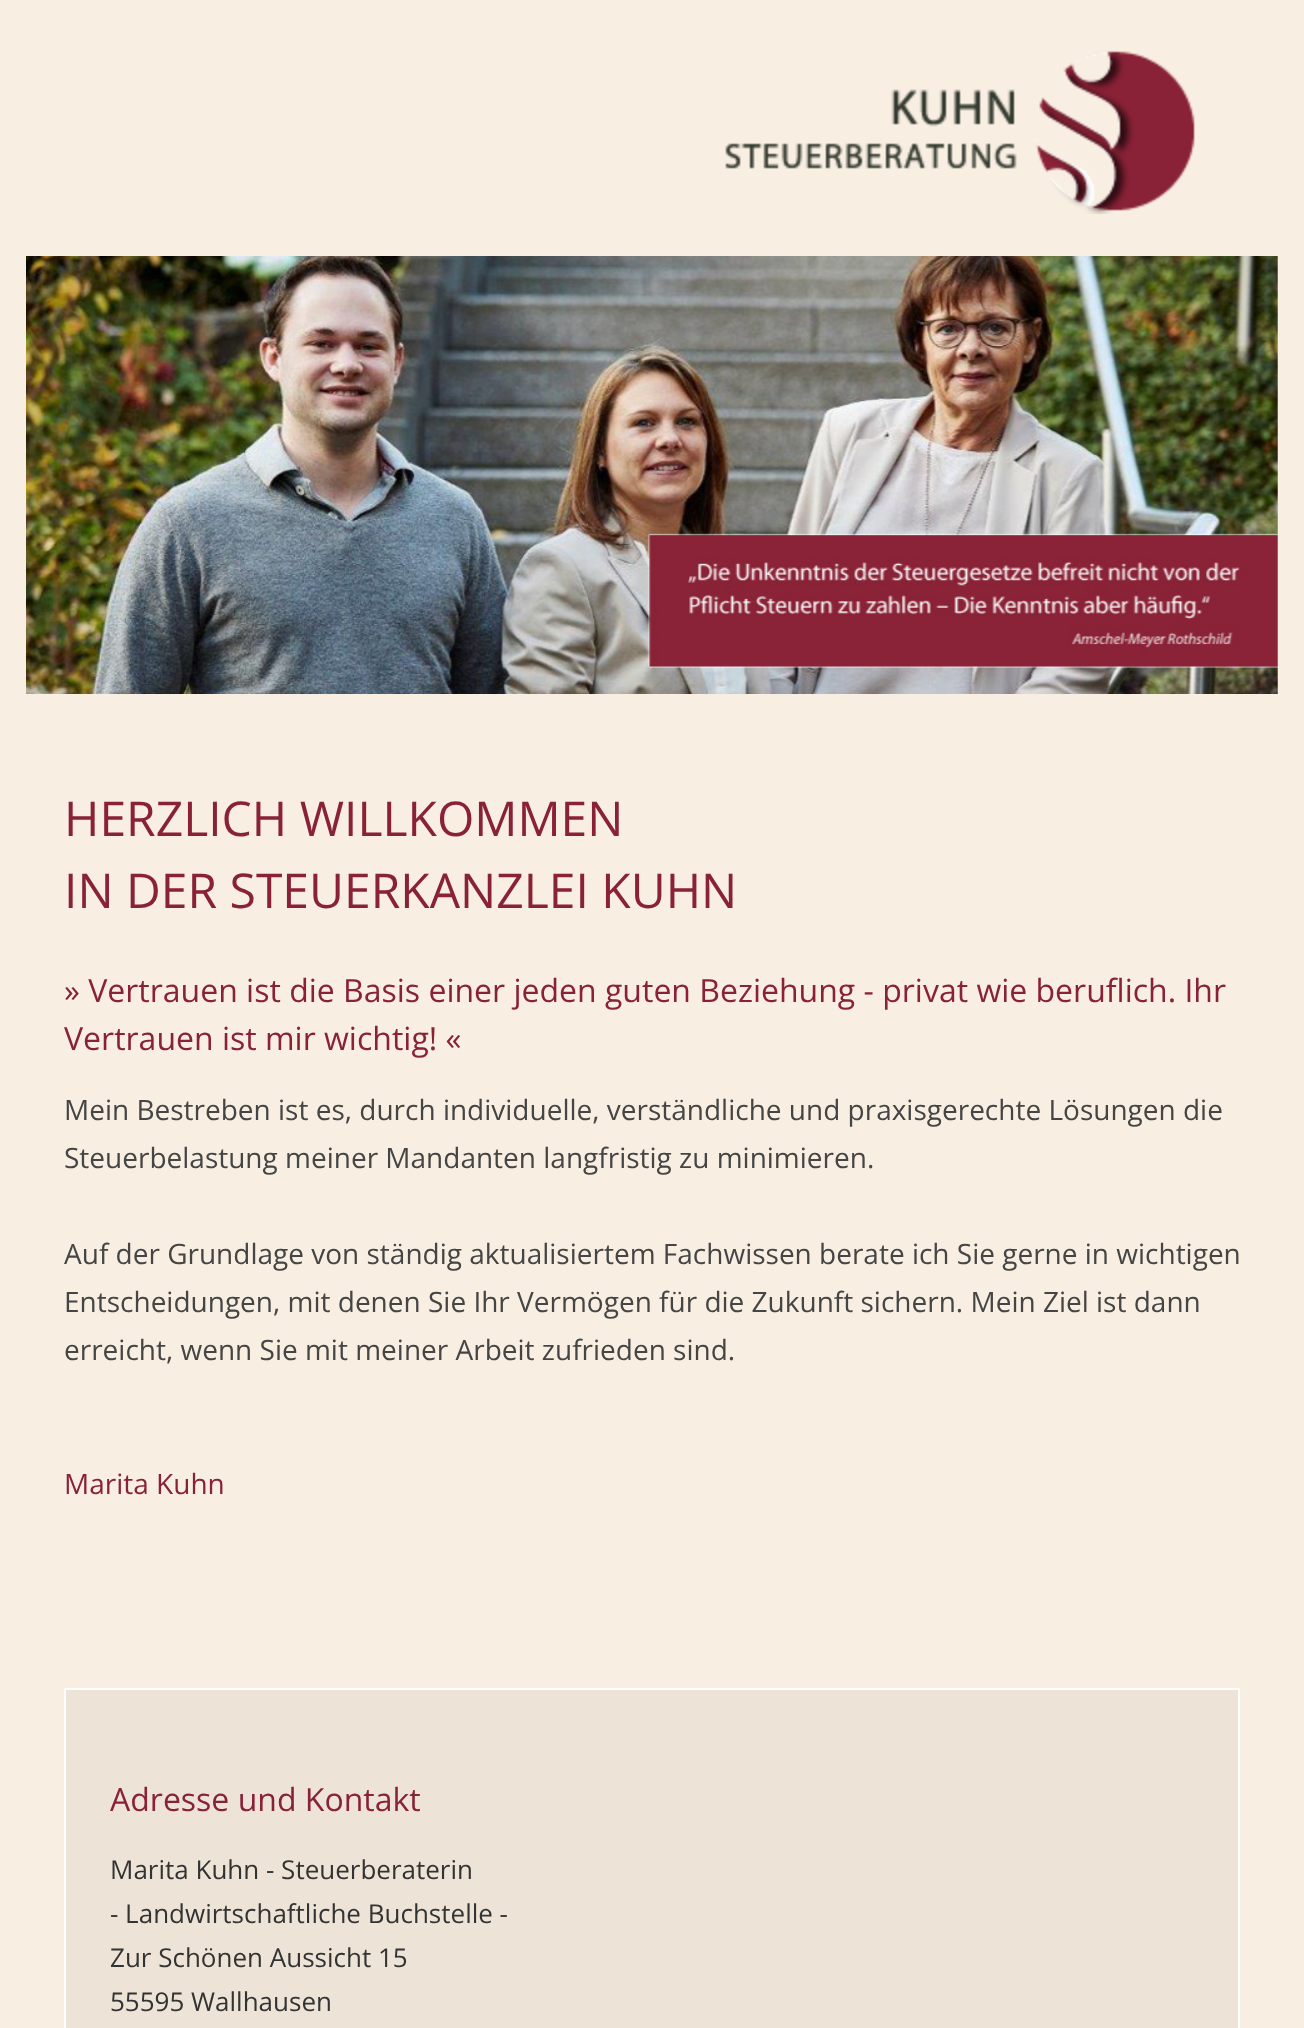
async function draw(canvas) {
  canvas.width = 1304
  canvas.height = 2028
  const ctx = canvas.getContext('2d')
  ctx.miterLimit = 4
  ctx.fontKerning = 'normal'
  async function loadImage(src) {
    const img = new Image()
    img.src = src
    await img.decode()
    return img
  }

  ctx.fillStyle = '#f8efe2'
  ctx.fillRect(0, 0, 1304, 2028)
  ctx.drawImage(await loadImage('image0.png'), 725, 50, 470, 164)
  ctx.drawImage(await loadImage('image1.png'), 26, 256, 1252, 438)
  ctx.font = '48px Open Sans'
  ctx.fillStyle = '#8a2237'
  ctx.fillText('HERZLICH WILLKOMMEN', 64, 836)
  ctx.fillText('IN DER STEUERKANZLEI KUHN', 64, 908)
  ctx.font = '32px Open Sans'
  ctx.fillText('» Vertrauen ist die Basis einer jeden guten Beziehung - privat wie beruflich. Ihr', 64, 1002)
  ctx.fillText('Vertrauen ist mir wichtig! «', 64, 1050)
  ctx.font = '28px Open Sans'
  ctx.fillStyle = '#454545'
  ctx.fillText('Mein Bestreben ist es, durch individuelle, verständliche und praxisgerechte Lösungen die', 64, 1120)
  ctx.fillText('Steuerbelastung meiner Mandanten langfristig zu minimieren.', 64, 1168)
  ctx.fillText('Auf der Grundlage von ständig aktualisiertem Fachwissen berate ich Sie gerne in wichtigen', 64, 1264)
  ctx.fillText('Entscheidungen, mit denen Sie Ihr Vermögen für die Zukunft sichern. Mein Ziel ist dann', 64, 1312)
  ctx.fillText('erreicht, wenn Sie mit meiner Arbeit zufrieden sind.', 64, 1360)
  ctx.fillStyle = '#8a2237'
  ctx.fillText('Marita Kuhn', 64, 1494)
  ctx.fillStyle = '#ede4d7'
  ctx.beginPath()
  ctx.rect(65, 1689, 1174, 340)
  ctx.fill()
  ctx.strokeStyle = '#fff'
  ctx.lineWidth = 2
  ctx.stroke()
  ctx.font = '32px Open Sans'
  ctx.fillStyle = '#8a2237'
  ctx.fillText('Adresse und Kontakt', 110, 1811)
  ctx.font = '26px Open Sans'
  ctx.fillStyle = '#333'
  ctx.fillText('Marita Kuhn - Steuerberaterin', 110, 1879)
  ctx.fillText('- Landwirtschaftliche Buchstelle -', 110, 1923)
  ctx.fillText('Zur Schönen Aussicht 15', 110, 1967)
  ctx.fillText('55595 Wallhausen', 110, 2011)
}

draw(document.querySelector('canvas'))
